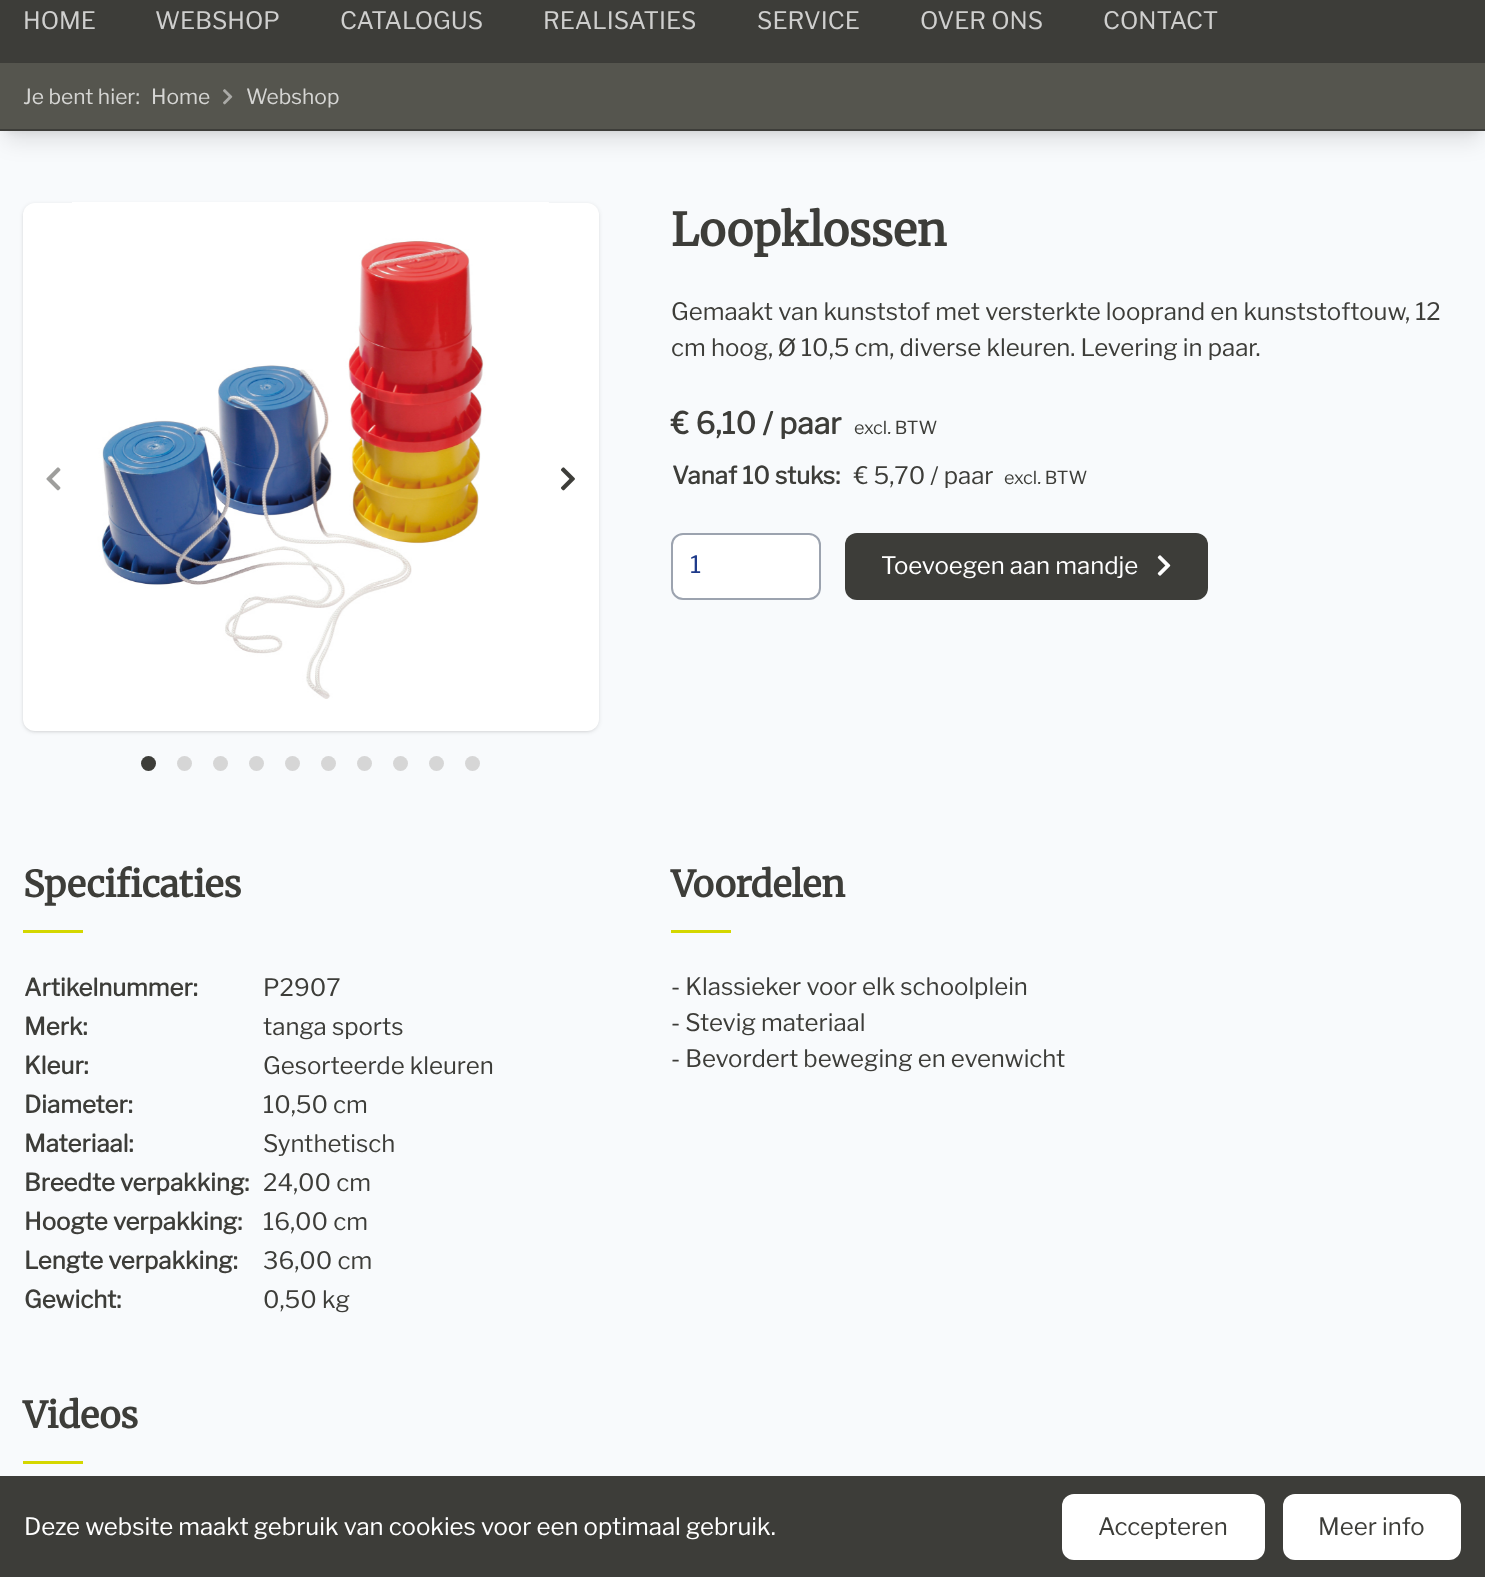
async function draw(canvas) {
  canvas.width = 1485
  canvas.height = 1577
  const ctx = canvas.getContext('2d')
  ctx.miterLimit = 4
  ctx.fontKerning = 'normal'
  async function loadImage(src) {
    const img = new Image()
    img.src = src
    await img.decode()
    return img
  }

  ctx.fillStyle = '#f8fafc'
  ctx.fillRect(0, 0, 1485, 1577)
  ctx.fillStyle = '#3d3d39'
  ctx.fillRect(0, 0, 1485, 63)
  ctx.font = '100 24px Libre Franklin'
  ctx.fillStyle = '#cfcfce'
  ctx.fillText('HOME', 23, 29)
  ctx.fillText('WEBSHOP', 155, 29)
  ctx.fillText('CATALOGUS', 340, 29)
  ctx.fillText('REALISATIES', 543, 29)
  ctx.fillText('SERVICE', 757, 29)
  ctx.fillText('OVER ONS', 920, 29)
  ctx.fillText('CONTACT', 1103, 29)
  ctx.fillStyle = '#0000001a'
  ctx.filter = 'blur(4.5px)'
  ctx.beginPath()
  ctx.rect(6, 75, 1473, 56)
  ctx.fill()
  ctx.filter = 'none'
  ctx.filter = 'blur(11px)'
  ctx.beginPath()
  ctx.rect(5, 83, 1476, 58)
  ctx.fill()
  ctx.filter = 'none'
  ctx.fillStyle = '#55554e'
  ctx.fillRect(0, 63, 1485, 66)
  ctx.fillStyle = '#3d3d39'
  ctx.fillRect(0, 129, 1485, 2)
  ctx.font = '100 21px Libre Franklin'
  ctx.fillStyle = '#d5d5d3'
  ctx.fillText('Je bent hier:', 23, 104)
  ctx.fillText('Home', 151, 104)
  ctx.drawImage(await loadImage('image0.png'), 223, 89, 10, 16)
  ctx.fillText('Webshop', 246, 104)
  ctx.fillStyle = '#0000001a'
  ctx.filter = 'blur(1.5px)'
  ctx.beginPath()
  ctx.roundRect(24, 206, 573, 525, 11)
  ctx.fill()
  ctx.filter = 'none'
  ctx.filter = 'blur(2px)'
  ctx.beginPath()
  ctx.roundRect(23, 204, 576, 528, 12)
  ctx.fill()
  ctx.filter = 'none'
  ctx.fillStyle = '#fff'
  ctx.beginPath()
  ctx.roundRect(23, 203, 576, 528, 12)
  ctx.fill()
  ctx.drawImage(await loadImage('image1.png'), 72, 202, 477, 497)
  ctx.drawImage(await loadImage('image2.png'), 46, 467, 15, 24)
  ctx.drawImage(await loadImage('image3.png'), 561, 467, 14, 24)
  ctx.fillStyle = '#3d3d39'
  ctx.beginPath()
  ctx.arc(148.5, 763.5, 7.5, 0, 2 * Math.PI)
  ctx.fill()
  ctx.fillStyle = '#d6d6d6'
  ctx.beginPath()
  ctx.arc(184.5, 763.5, 7.5, 0, 2 * Math.PI)
  ctx.fill()
  ctx.beginPath()
  ctx.arc(220.5, 763.5, 7.5, 0, 2 * Math.PI)
  ctx.fill()
  ctx.beginPath()
  ctx.arc(256.5, 763.5, 7.5, 0, 2 * Math.PI)
  ctx.fill()
  ctx.beginPath()
  ctx.arc(292.5, 763.5, 7.5, 0, 2 * Math.PI)
  ctx.fill()
  ctx.beginPath()
  ctx.arc(328.5, 763.5, 7.5, 0, 2 * Math.PI)
  ctx.fill()
  ctx.beginPath()
  ctx.arc(364.5, 763.5, 7.5, 0, 2 * Math.PI)
  ctx.fill()
  ctx.beginPath()
  ctx.arc(400.5, 763.5, 7.5, 0, 2 * Math.PI)
  ctx.fill()
  ctx.beginPath()
  ctx.arc(436.5, 763.5, 7.5, 0, 2 * Math.PI)
  ctx.fill()
  ctx.beginPath()
  ctx.arc(472.5, 763.5, 7.5, 0, 2 * Math.PI)
  ctx.fill()
  ctx.font = 'bold 45px Merriweather'
  ctx.fillStyle = '#3d3d39'
  ctx.fillText('Loopklossen', 671, 246)
  ctx.font = '100 24px Libre Franklin'
  ctx.fillText('Gemaakt van kunststof met versterkte looprand en kunststoftouw, 12', 671, 320)
  ctx.fillText('cm hoog, Ø 10,5 cm, diverse kleuren. Levering in paar.', 671, 356)
  ctx.font = 'bold 30px Libre Franklin'
  ctx.fillText('€ 6,10 / paar', 671, 434)
  ctx.font = '100 18px Libre Franklin'
  ctx.fillText('excl. BTW', 854, 434)
  ctx.font = 'bold 24px Libre Franklin'
  ctx.fillText('Vanaf 10 stuks:', 672, 484)
  ctx.font = '100 24px Libre Franklin'
  ctx.fillText('€ 5,70 / paar', 854, 484)
  ctx.font = '100 18px Libre Franklin'
  ctx.fillText('excl. BTW', 1004, 484)
  ctx.fillStyle = '#fff'
  ctx.beginPath()
  ctx.roundRect(672, 534, 148, 65, 11)
  ctx.fill()
  ctx.strokeStyle = '#9ca3af'
  ctx.lineWidth = 2
  ctx.stroke()
  ctx.font = '100 24px Libre Franklin'
  ctx.fillStyle = '#1e3a8a'
  ctx.fillText('1', 690, 573)
  ctx.fillStyle = '#3d3d39'
  ctx.beginPath()
  ctx.roundRect(845, 533, 363, 67, 12)
  ctx.fill()
  ctx.fillStyle = '#fff'
  ctx.fillText('Toevoegen aan mandje', 881, 574)
  ctx.drawImage(await loadImage('image4.png'), 1157, 555, 14, 21)
  ctx.font = 'bold 36px Merriweather'
  ctx.fillStyle = '#3d3d39'
  ctx.fillText('Specificaties', 23, 897)
  ctx.fillStyle = '#d4d700'
  ctx.fillRect(23, 930, 60, 3)
  ctx.font = 'bold 24px Libre Franklin'
  ctx.fillStyle = '#3d3d39'
  ctx.fillText('Artikelnummer:', 24, 996)
  ctx.font = '100 24px Libre Franklin'
  ctx.fillText('P2907', 263, 996)
  ctx.font = 'bold 24px Libre Franklin'
  ctx.fillText('Merk:', 24, 1035)
  ctx.font = '100 24px Libre Franklin'
  ctx.fillText('tanga sports', 263, 1035)
  ctx.font = 'bold 24px Libre Franklin'
  ctx.fillText('Kleur:', 24, 1074)
  ctx.font = '100 24px Libre Franklin'
  ctx.fillText('Gesorteerde kleuren', 263, 1074)
  ctx.font = 'bold 24px Libre Franklin'
  ctx.fillText('Diameter:', 24, 1113)
  ctx.font = '100 24px Libre Franklin'
  ctx.fillText('10,50 cm', 263, 1113)
  ctx.font = 'bold 24px Libre Franklin'
  ctx.fillText('Materiaal:', 24, 1152)
  ctx.font = '100 24px Libre Franklin'
  ctx.fillText('Synthetisch', 263, 1152)
  ctx.font = 'bold 24px Libre Franklin'
  ctx.fillText('Breedte verpakking:', 24, 1191)
  ctx.font = '100 24px Libre Franklin'
  ctx.fillText('24,00 cm', 263, 1191)
  ctx.font = 'bold 24px Libre Franklin'
  ctx.fillText('Hoogte verpakking:', 24, 1230)
  ctx.font = '100 24px Libre Franklin'
  ctx.fillText('16,00 cm', 263, 1230)
  ctx.font = 'bold 24px Libre Franklin'
  ctx.fillText('Lengte verpakking:', 24, 1269)
  ctx.font = '100 24px Libre Franklin'
  ctx.fillText('36,00 cm', 263, 1269)
  ctx.font = 'bold 24px Libre Franklin'
  ctx.fillText('Gewicht:', 24, 1308)
  ctx.font = '100 24px Libre Franklin'
  ctx.fillText('0,50 kg', 263, 1308)
  ctx.font = 'bold 36px Merriweather'
  ctx.fillText('Videos', 23, 1428)
  ctx.fillStyle = '#d4d700'
  ctx.fillRect(23, 1461, 60, 3)
  ctx.fillStyle = '#3d3d39'
  ctx.fillText('Voordelen', 671, 897)
  ctx.fillStyle = '#d4d700'
  ctx.fillRect(671, 930, 60, 3)
  ctx.font = '100 24px Libre Franklin'
  ctx.fillStyle = '#3d3d39'
  ctx.fillText('- Klassieker voor elk schoolplein', 671, 995)
  ctx.fillText('- Stevig materiaal', 671, 1031)
  ctx.fillText('- Bevordert beweging en evenwicht', 671, 1067)
  ctx.fillRect(0, 1476, 1485, 101)
  ctx.fillStyle = '#fff'
  ctx.fillText('Deze website maakt gebruik van cookies voor een optimaal gebruik.', 24, 1535)
  ctx.beginPath()
  ctx.roundRect(1062, 1494, 203, 66, 12)
  ctx.fill()
  ctx.fillStyle = '#3d3d39'
  ctx.fillText('Accepteren', 1098, 1535)
  ctx.fillStyle = '#fff'
  ctx.beginPath()
  ctx.roundRect(1283, 1494, 178, 66, 12)
  ctx.fill()
  ctx.fillStyle = '#3d3d39'
  ctx.fillText('Meer info', 1318, 1535)
}

draw(document.querySelector('canvas'))
